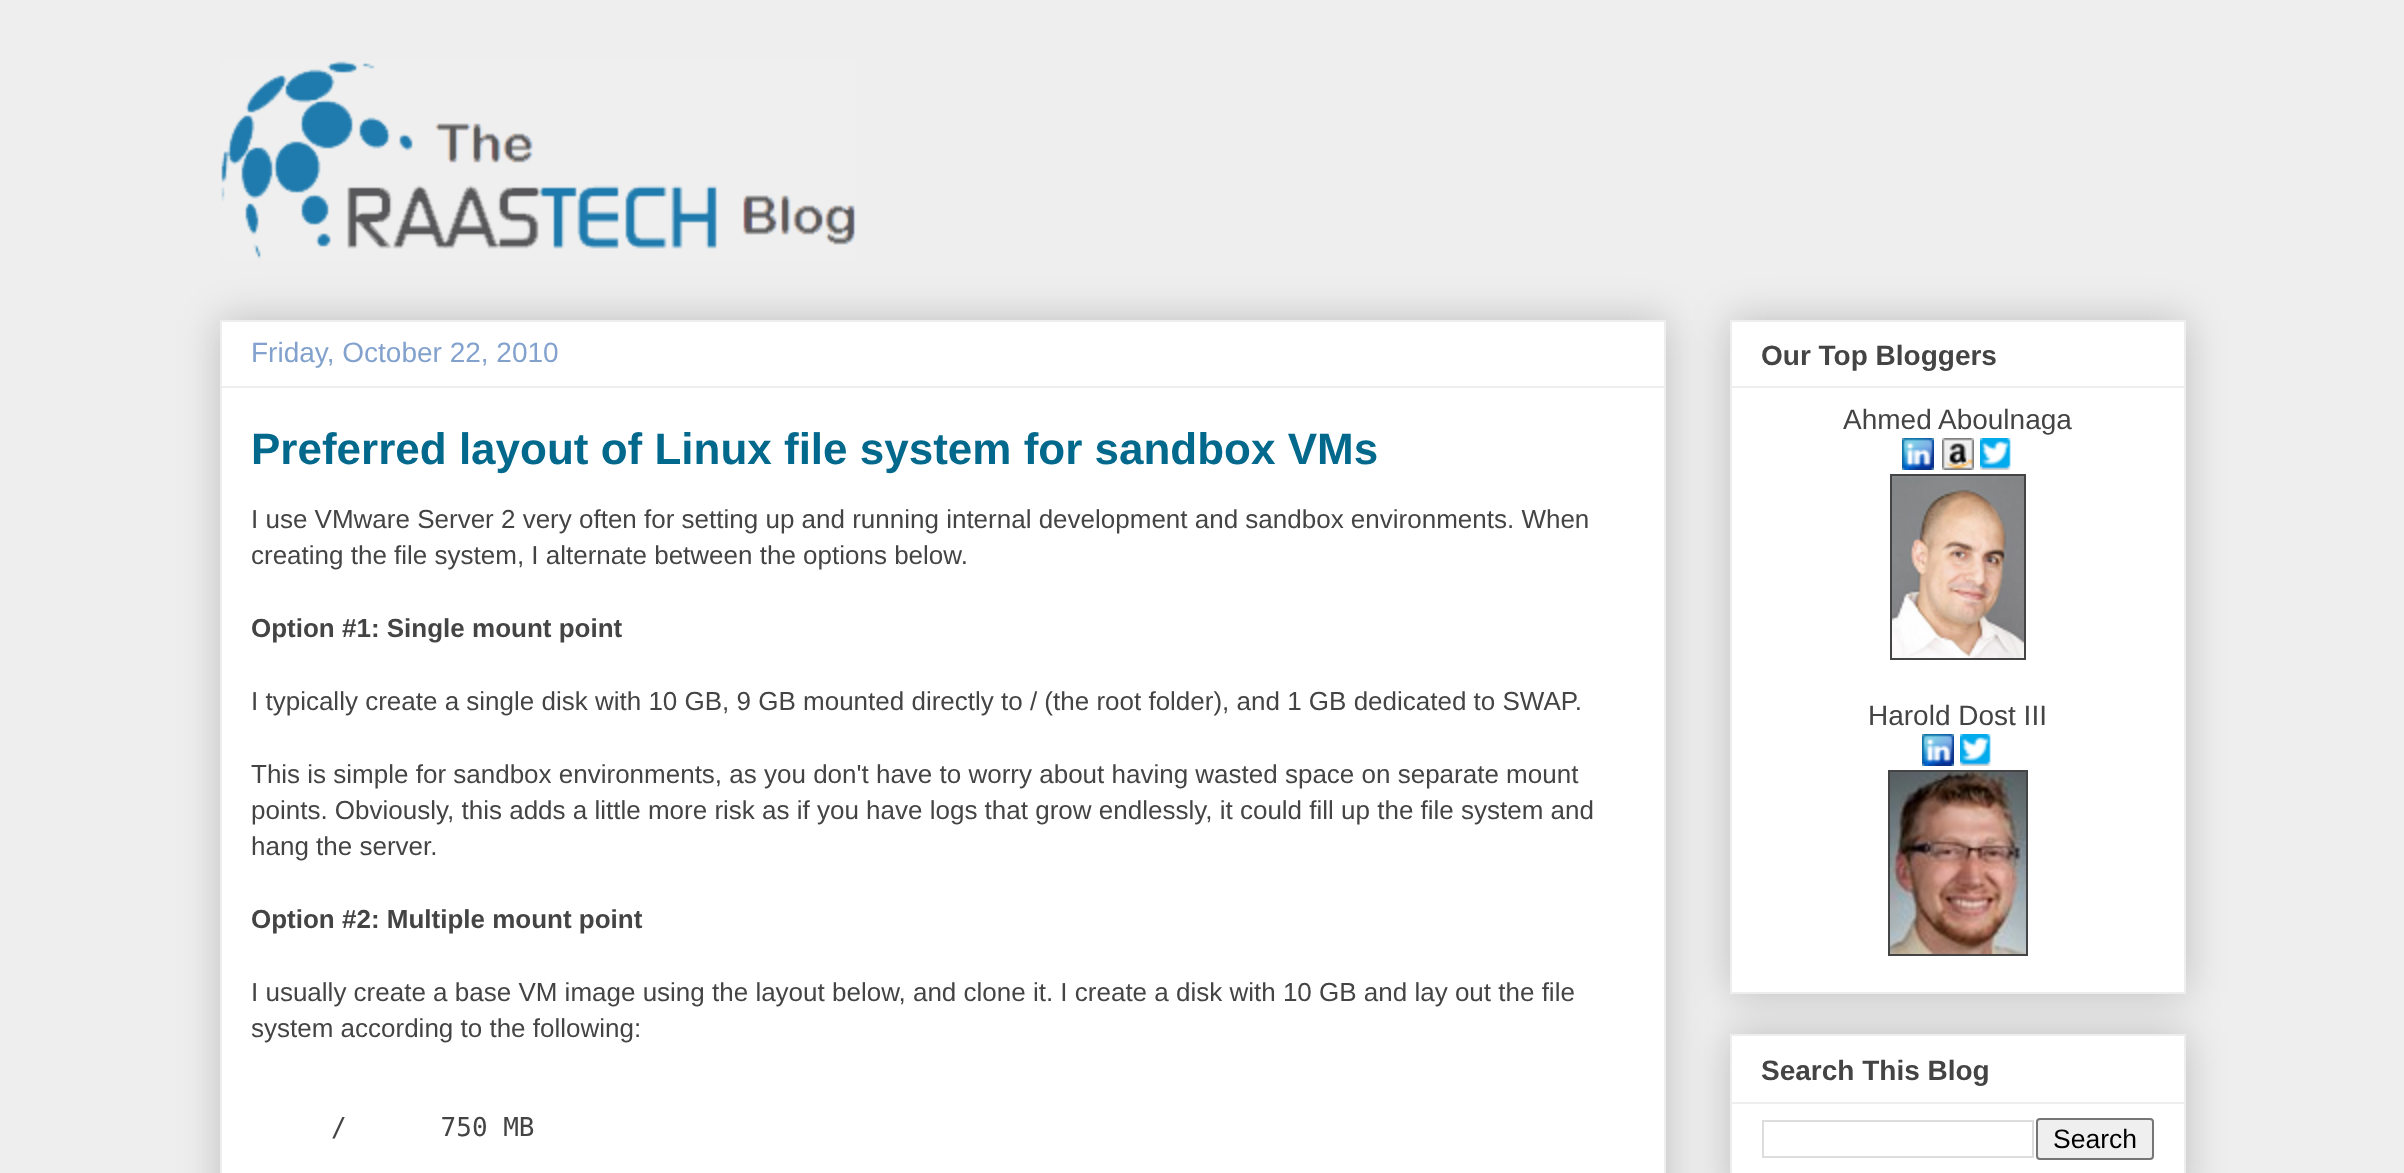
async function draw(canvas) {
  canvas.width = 2404
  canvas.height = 1173
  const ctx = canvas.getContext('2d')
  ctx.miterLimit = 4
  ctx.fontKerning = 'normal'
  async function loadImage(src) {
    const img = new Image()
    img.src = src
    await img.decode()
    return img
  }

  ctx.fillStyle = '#eee'
  ctx.fillRect(0, 0, 2404, 1173)
  ctx.drawImage(await loadImage('image0.png'), 221, 61, 635, 198)
  ctx.fillStyle = '#00000033'
  ctx.filter = 'blur(20px)'
  ctx.beginPath()
  ctx.rect(220, 320, 1446, 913)
  ctx.fill()
  ctx.filter = 'none'
  ctx.fillStyle = '#fff'
  ctx.beginPath()
  ctx.rect(221, 321, 1444, 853)
  ctx.fill()
  ctx.strokeStyle = '#eee'
  ctx.lineWidth = 2
  ctx.stroke()
  ctx.font = '28px Liberation Sans'
  ctx.fillStyle = '#82a2cd'
  ctx.fillText('Friday, October 22, 2010', 251, 362)
  ctx.fillStyle = '#eee'
  ctx.fillRect(222, 386, 1442, 2)
  ctx.font = 'bold 44px Liberation Sans'
  ctx.fillStyle = '#03698c'
  ctx.fillText('Preferred layout of Linux file system for sandbox VMs', 251, 464)
  ctx.font = '26px Liberation Sans'
  ctx.fillStyle = '#444'
  ctx.fillText('I use VMware Server 2 very often for setting up and running internal development and sandbox environments. When', 251, 528)
  ctx.fillText('creating the file system, I alternate between the options below.', 251, 564)
  ctx.font = 'bold 26px Liberation Sans'
  ctx.fillText('Option #1: Single mount point', 251, 637)
  ctx.font = '26px Liberation Sans'
  ctx.fillText('I typically create a single disk with 10 GB, 9 GB mounted directly to / (the root folder), and 1 GB dedicated to SWAP.', 251, 710)
  ctx.fillText('This is simple for sandbox environments, as you don\'t have to worry about having wasted space on separate mount', 251, 783)
  ctx.fillText('points. Obviously, this adds a little more risk as if you have logs that grow endlessly, it could fill up the file system and', 251, 819)
  ctx.fillText('hang the server.', 251, 855)
  ctx.font = 'bold 26px Liberation Sans'
  ctx.fillText('Option #2: Multiple mount point', 251, 928)
  ctx.font = '26px Liberation Sans'
  ctx.fillText('I usually create a base VM image using the layout below, and clone it. I create a disk with 10 GB and lay out the file', 251, 1001)
  ctx.fillText('system according to the following:', 251, 1037)
  ctx.font = '26px DejaVu Sans Mono'
  ctx.fillText('/      750 MB', 331, 1136)
  ctx.fillStyle = '#00000033'
  ctx.filter = 'blur(20px)'
  ctx.beginPath()
  ctx.rect(1730, 320, 456, 674)
  ctx.fill()
  ctx.filter = 'none'
  ctx.fillStyle = '#fff'
  ctx.beginPath()
  ctx.rect(1731, 321, 454, 672)
  ctx.fill()
  ctx.stroke()
  ctx.font = 'bold 28px Liberation Sans'
  ctx.fillStyle = '#444'
  ctx.fillText('Our Top Bloggers', 1761, 365)
  ctx.fillStyle = '#eee'
  ctx.fillRect(1732, 386, 452, 2)
  ctx.font = '28px Liberation Sans'
  ctx.fillStyle = '#444'
  ctx.fillText('Ahmed Aboulnaga', 1843, 429)
  ctx.drawImage(await loadImage('image1.png'), 1902, 438, 32, 32)
  ctx.drawImage(await loadImage('image2.png'), 1942, 438, 32, 32)
  ctx.drawImage(await loadImage('image3.png'), 1980, 438, 31, 32)
  ctx.strokeStyle = '#444'
  ctx.strokeRect(1891, 475, 134, 184)
  ctx.drawImage(await loadImage('image4.png'), 1892, 476, 132, 182)
  ctx.fillText('Harold Dost III', 1868, 725)
  ctx.drawImage(await loadImage('image1.png'), 1922, 734, 32, 32)
  ctx.drawImage(await loadImage('image3.png'), 1960, 734, 31, 32)
  ctx.strokeRect(1889, 771, 138, 184)
  ctx.drawImage(await loadImage('image5.png'), 1890, 772, 136, 182)
  ctx.fillStyle = '#00000033'
  ctx.filter = 'blur(20px)'
  ctx.beginPath()
  ctx.rect(1730, 1034, 456, 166)
  ctx.fill()
  ctx.filter = 'none'
  ctx.fillStyle = '#fff'
  ctx.beginPath()
  ctx.rect(1731, 1035, 454, 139)
  ctx.fill()
  ctx.strokeStyle = '#eee'
  ctx.stroke()
  ctx.font = 'bold 28px Liberation Sans'
  ctx.fillStyle = '#444'
  ctx.fillText('Search This Blog', 1761, 1080)
  ctx.fillStyle = '#eee'
  ctx.fillRect(1732, 1102, 452, 2)
  ctx.strokeStyle = '#ddd'
  ctx.strokeRect(1763, 1121, 270, 36)
  ctx.fillStyle = '#efefef'
  ctx.beginPath()
  ctx.roundRect(2037, 1119, 116, 40, 3)
  ctx.fill()
  ctx.strokeStyle = '#767676'
  ctx.stroke()
  ctx.font = '26.5px Liberation Sans'
  ctx.fillStyle = '#000'
  ctx.fillText('Search', 2053, 1148)
}

draw(document.querySelector('canvas'))
